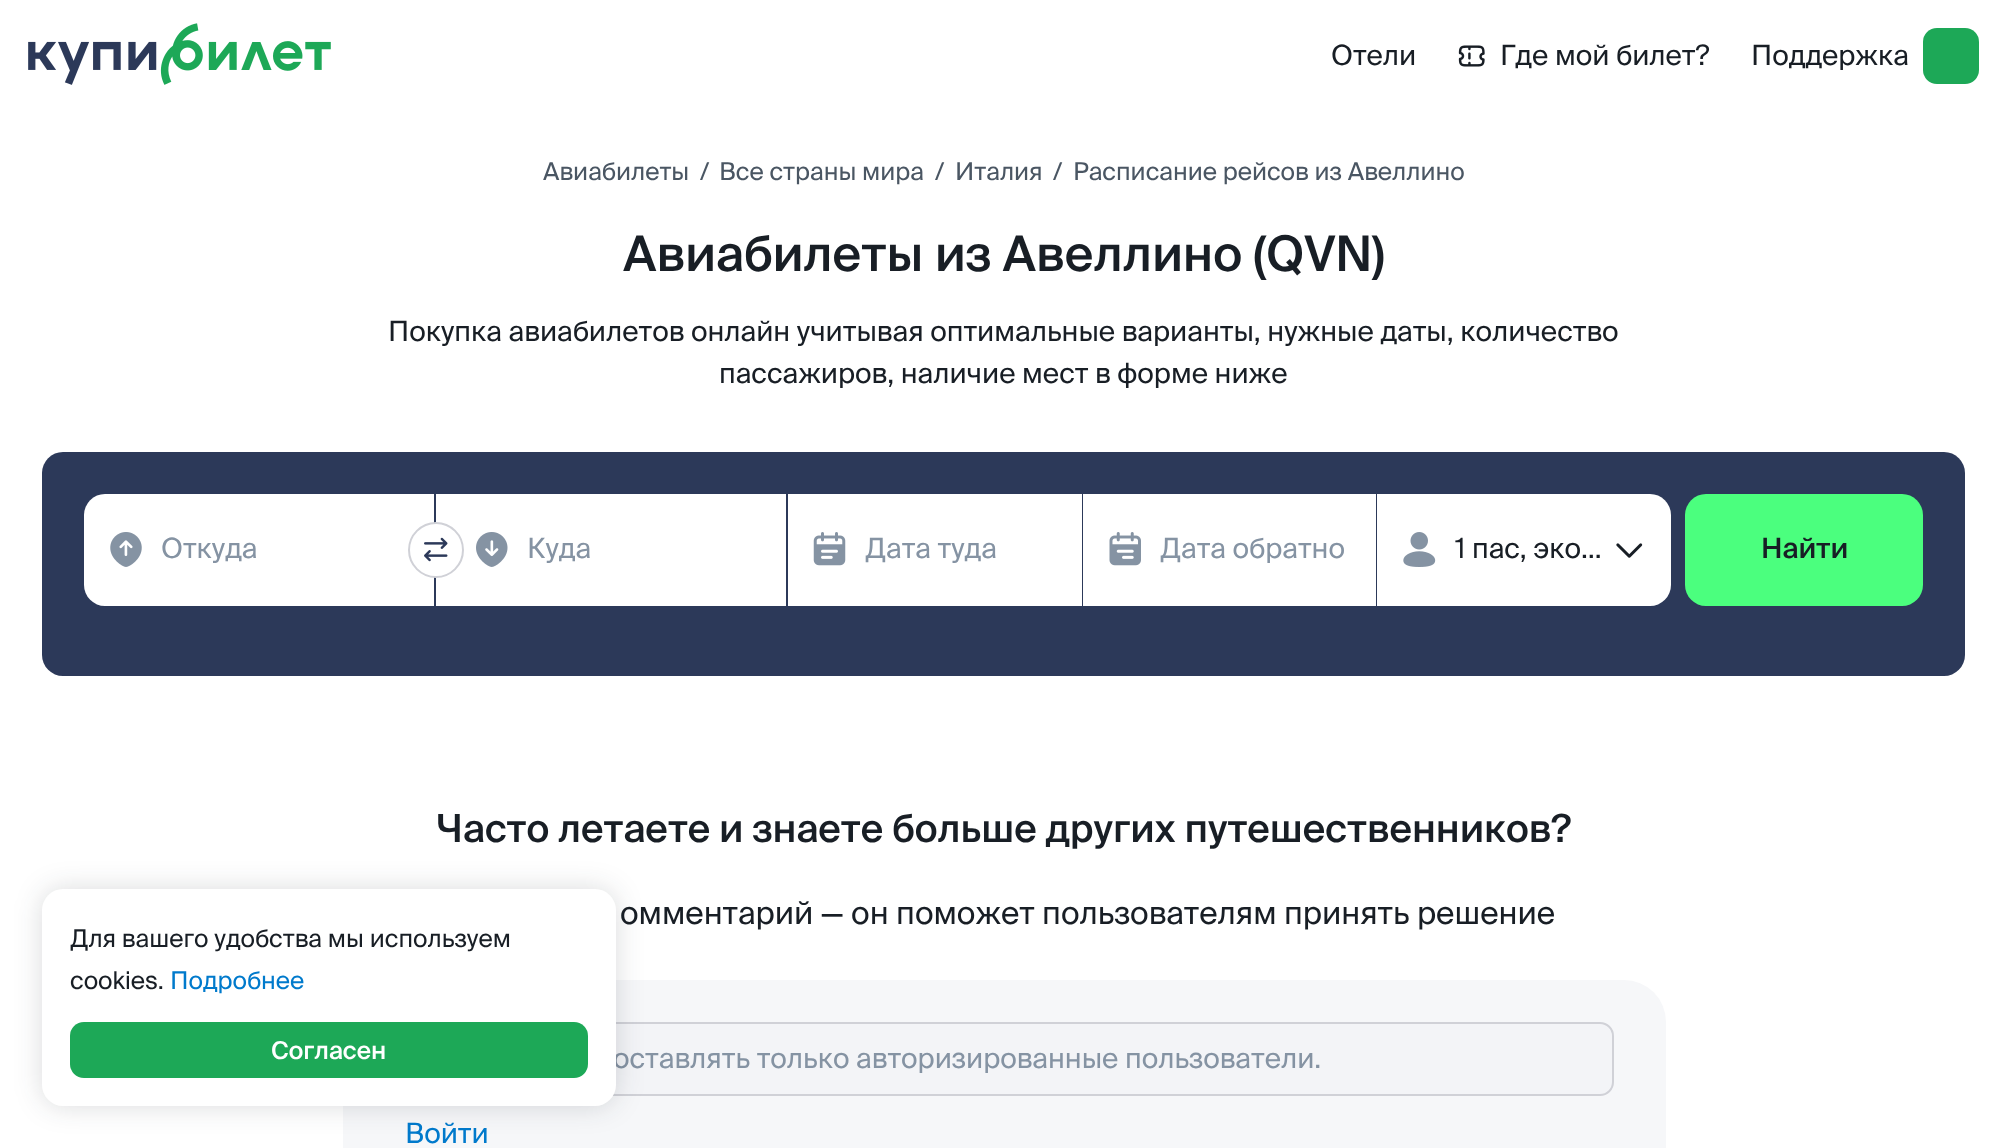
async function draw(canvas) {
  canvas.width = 2007
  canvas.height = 1148
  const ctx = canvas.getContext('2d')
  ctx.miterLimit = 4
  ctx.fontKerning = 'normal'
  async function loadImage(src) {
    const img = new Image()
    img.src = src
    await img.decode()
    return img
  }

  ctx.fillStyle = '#fff'
  ctx.fillRect(0, 0, 2007, 1148)
  ctx.drawImage(await loadImage('image0.png'), 28, 23, 303, 62)
  ctx.font = '500 28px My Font'
  ctx.fillStyle = '#181e25'
  ctx.fillText('Отели', 1331, 65)
  ctx.drawImage(await loadImage('image1.png'), 1458, 45, 27, 22)
  ctx.fillText('Где мой билет?', 1500, 65)
  ctx.fillText('Поддержка', 1751, 65)
  ctx.fillStyle = '#1da857'
  ctx.beginPath()
  ctx.roundRect(1923, 28, 56, 56, 14)
  ctx.fill()
  ctx.font = '500 24.5px My Font'
  ctx.fillStyle = '#4a5663'
  ctx.fillText('Авиабилеты', 543, 180)
  ctx.fillText('/', 700, 180)
  ctx.fillText('Все страны мира', 719, 180)
  ctx.fillText('/', 935, 180)
  ctx.fillText('Италия', 955, 180)
  ctx.fillText('/', 1053, 180)
  ctx.fillText('Расписание рейсов из Авеллино', 1073, 180)
  ctx.font = '500 49px "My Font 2"'
  ctx.fillStyle = '#181e25'
  ctx.fillText('Авиабилеты из Авеллино (QVN)', 623, 271)
  ctx.font = '500 28px My Font'
  ctx.fillText('Покупка авиабилетов онлайн учитывая оптимальные варианты, нужные даты, количество', 388, 341)
  ctx.fillText('пассажиров, наличие мест в форме ниже', 719, 383)
  ctx.fillStyle = '#2c3959'
  ctx.beginPath()
  ctx.roundRect(42, 452, 1923, 224, 21)
  ctx.fill()
  ctx.fillStyle = '#fff'
  ctx.beginPath()
  ctx.roundRect(84, 494, 350, 112, [21, 0, 0, 21])
  ctx.fill()
  ctx.drawImage(await loadImage('image2.png'), 110, 532, 32, 35)
  ctx.fillStyle = '#8593a3'
  ctx.fillText('Откуда', 161, 558)
  ctx.fillStyle = '#fff'
  ctx.fillRect(436, 494, 350, 112)
  ctx.beginPath()
  ctx.arc(436, 550, 27, 0, 2 * Math.PI)
  ctx.fill()
  ctx.strokeStyle = '#d0d1d7'
  ctx.lineWidth = 2
  ctx.stroke()
  ctx.drawImage(await loadImage('image3.png'), 424, 537, 24, 25)
  ctx.drawImage(await loadImage('image4.png'), 476, 532, 32, 35)
  ctx.fillStyle = '#8593a3'
  ctx.fillText('Куда', 527, 558)
  ctx.fillStyle = '#fff'
  ctx.fillRect(788, 494, 294, 112)
  ctx.drawImage(await loadImage('image5.png'), 813, 532, 33, 34)
  ctx.fillStyle = '#8593a3'
  ctx.fillText('Дата туда', 865, 558)
  ctx.fillStyle = '#fff'
  ctx.fillRect(1083, 494, 293, 112)
  ctx.drawImage(await loadImage('image6.png'), 1109, 532, 32, 34)
  ctx.fillStyle = '#8593a3'
  ctx.fillText('Дата обратно', 1160, 558)
  ctx.fillStyle = '#fff'
  ctx.beginPath()
  ctx.roundRect(1377, 494, 294, 112, [0, 21, 21, 0])
  ctx.fill()
  ctx.drawImage(await loadImage('image7.png'), 1403, 532, 33, 35)
  ctx.fillStyle = '#181e25'
  ctx.fillText('1 пас, эко…', 1455, 558)
  ctx.drawImage(await loadImage('image8.png'), 1616, 543, 27, 15)
  ctx.fillStyle = '#4bff7e'
  ctx.beginPath()
  ctx.roundRect(1685, 494, 238, 112, 21)
  ctx.fill()
  ctx.font = '500 28px "My Font 2"'
  ctx.fillStyle = '#181e25'
  ctx.fillText('Найти', 1761, 558)
  ctx.font = '500 38.5px "My Font 2"'
  ctx.fillText('Часто летаете и знаете больше других путешественников?', 436, 842)
  ctx.font = '500 31.5px My Font'
  ctx.fillText('омментарий — он поможет пользователям принять решение', 620, 924)
  ctx.fillStyle = '#f6f7f9'
  ctx.beginPath()
  ctx.roundRect(343, 980, 1323, 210, 42)
  ctx.fill()
  ctx.fillStyle = '#f3f4f7'
  ctx.beginPath()
  ctx.roundRect(397, 1023, 1216, 72, 13)
  ctx.fill()
  ctx.stroke()
  ctx.font = '500 28px My Font'
  ctx.fillStyle = '#8593a3'
  ctx.fillText('оставлять только авторизированные пользователи.', 613, 1068)
  ctx.fillStyle = '#007acc'
  ctx.fillText('Войти', 405, 1143)
  ctx.fillStyle = '#181e2529'
  ctx.filter = 'blur(14px)'
  ctx.beginPath()
  ctx.roundRect(42, 889, 574, 217, 21)
  ctx.fill()
  ctx.filter = 'none'
  ctx.fillStyle = '#fff'
  ctx.beginPath()
  ctx.roundRect(42, 889, 574, 217, 21)
  ctx.fill()
  ctx.font = '500 24.5px My Font'
  ctx.fillStyle = '#181e25'
  ctx.fillText('Для вашего удобства мы используем', 70, 947)
  ctx.fillText('cookies.', 70, 989)
  ctx.fillStyle = '#007acc'
  ctx.fillText('Подробнее', 170, 989)
  ctx.fillStyle = '#1da857'
  ctx.beginPath()
  ctx.roundRect(70, 1022, 518, 56, 14)
  ctx.fill()
  ctx.font = '500 24.5px "My Font 2"'
  ctx.fillStyle = '#fff'
  ctx.fillText('Согласен', 271, 1059)
}

draw(document.querySelector('canvas'))
